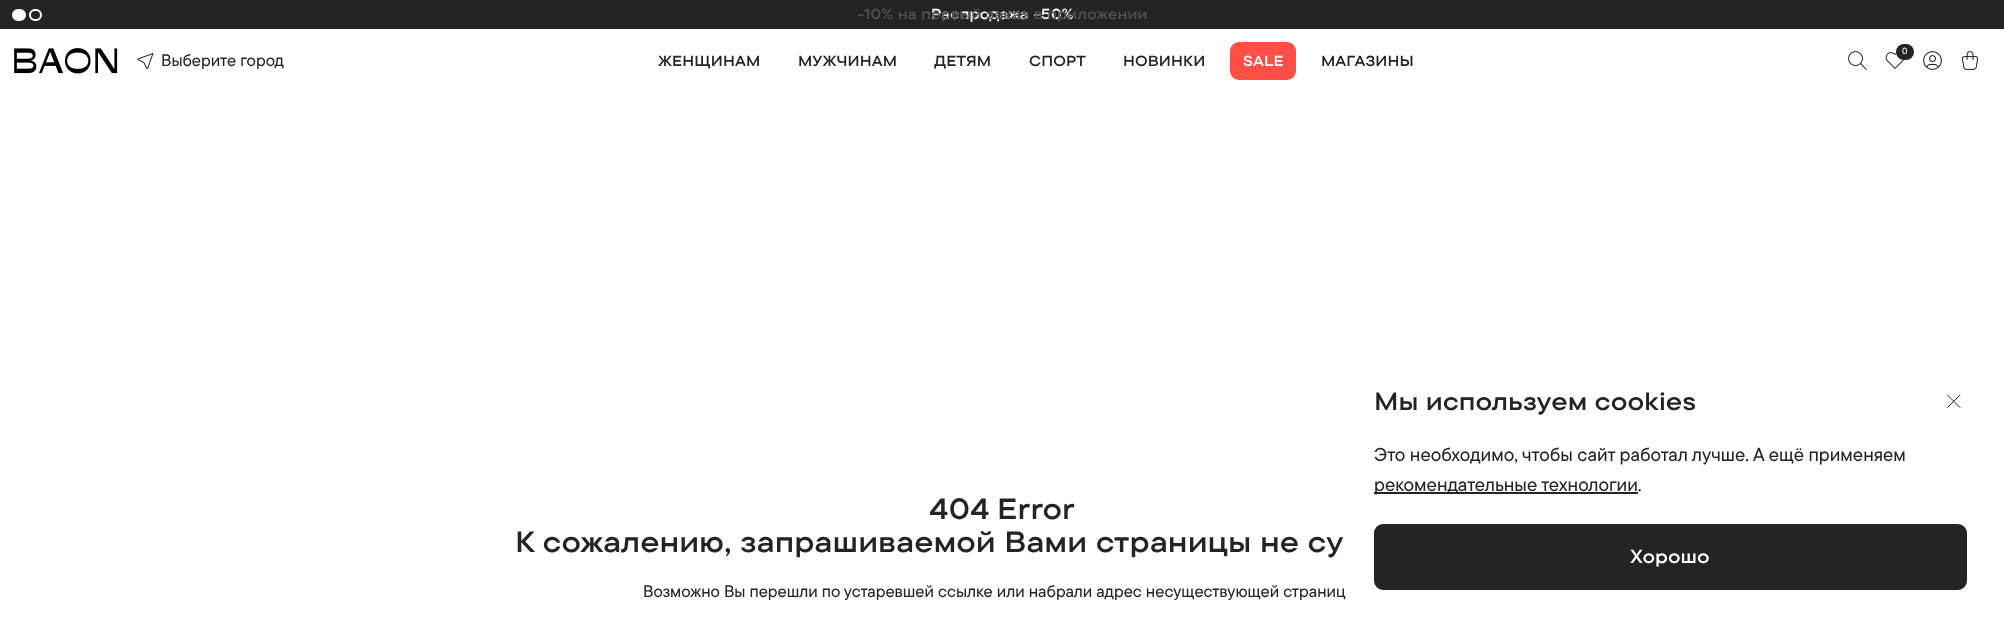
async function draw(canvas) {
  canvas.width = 2004
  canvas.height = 627
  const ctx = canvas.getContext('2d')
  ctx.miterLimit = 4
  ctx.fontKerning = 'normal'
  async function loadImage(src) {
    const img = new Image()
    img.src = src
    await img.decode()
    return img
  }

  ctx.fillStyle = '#fff'
  ctx.fillRect(0, 0, 2004, 627)
  ctx.fillStyle = '#262422'
  ctx.fillRect(0, 0, 2004, 29)
  ctx.fillStyle = '#fff'
  ctx.beginPath()
  ctx.roundRect(13, 10, 12, 10, 5)
  ctx.fill()
  ctx.strokeStyle = '#fff'
  ctx.lineWidth = 2
  ctx.stroke()
  ctx.beginPath()
  ctx.roundRect(30, 10, 11, 10, 5)
  ctx.stroke()
  ctx.letterSpacing = '0.1px'
  ctx.font = '600 14.6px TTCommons'
  ctx.fillText('Распродажа -50%', 931, 19)
  ctx.fillStyle = '#52514f'
  ctx.fillText('-10% на первый заказ в приложении', 857, 19)
  ctx.drawImage(await loadImage('image0.png'), 1848, 51, 19, 19)
  ctx.drawImage(await loadImage('image1.png'), 1885, 52, 19, 17)
  ctx.fillStyle = '#262422'
  ctx.beginPath()
  ctx.roundRect(1896, 44, 18, 16, 8)
  ctx.fill()
  ctx.letterSpacing = '0px'
  ctx.font = '500 9px TTCommons'
  ctx.fillStyle = '#fff'
  ctx.fillText('0', 1902, 54)
  ctx.drawImage(await loadImage('image2.png'), 1923, 51, 19, 19)
  ctx.drawImage(await loadImage('image3.png'), 1961, 51, 18, 19)
  ctx.drawImage(await loadImage('image4.png'), 14, 48, 104, 26)
  ctx.drawImage(await loadImage('image5.png'), 137, 53, 17, 17)
  ctx.font = '500 16.7px TTCommons'
  ctx.fillStyle = '#262422'
  ctx.fillText('Выберите город', 161, 66)
  ctx.letterSpacing = '0.1px'
  ctx.font = '600 14.6px TTCommons'
  ctx.fillText('ЖЕНЩИНАМ', 658, 66)
  ctx.fillText('МУЖЧИНАМ', 798, 66)
  ctx.fillText('ДЕТЯМ', 934, 66)
  ctx.fillText('СПОРТ', 1029, 66)
  ctx.fillText('НОВИНКИ', 1123, 66)
  ctx.fillStyle = '#ff4e44'
  ctx.beginPath()
  ctx.roundRect(1230, 42, 66, 38, 9)
  ctx.fill()
  ctx.fillStyle = '#fff'
  ctx.fillText('SALE', 1243, 66)
  ctx.fillStyle = '#262422'
  ctx.fillText('МАГАЗИНЫ', 1321, 66)
  ctx.letterSpacing = '0px'
  ctx.font = '600 29.25px TTCommons'
  ctx.fillText('404 Error', 929, 519)
  ctx.fillText('К сожалению, запрашиваемой Вами страницы не су', 515, 552)
  ctx.font = '500 16.7px TTCommons'
  ctx.fillText('Возможно Вы перешли по устаревшей ссылке или набрали адрес несуществующей страниц', 643, 597)
  ctx.font = '600 25px TTCommons'
  ctx.fillText('Мы используем cookies', 1374, 410)
  ctx.beginPath()
  ctx.moveTo(1960, 395)
  ctx.lineTo(1947.5, 407.5)
  ctx.moveTo(1947.5, 395)
  ctx.lineTo(1960, 407.5)
  ctx.strokeStyle = '#262422'
  ctx.lineWidth = 1
  ctx.lineCap = 'round'
  ctx.lineJoin = 'round'
  ctx.stroke()
  ctx.font = '500 18.8px TTCommons'
  ctx.fillText('Это необходимо, чтобы сайт работал лучше. А ещё применяем', 1374, 461)
  ctx.fillRect(1374, 492, 264, 2)
  ctx.fillText('рекомендательные технологии.', 1374, 491)
  ctx.beginPath()
  ctx.roundRect(1375, 525, 591, 64, 8)
  ctx.fill()
  ctx.lineWidth = 2
  ctx.lineJoin = 'miter'
  ctx.stroke()
  ctx.font = '600 18.8px TTCommons'
  ctx.fillStyle = '#fff'
  ctx.fillText('Хорошо', 1630, 563)
}

draw(document.querySelector('canvas'))
